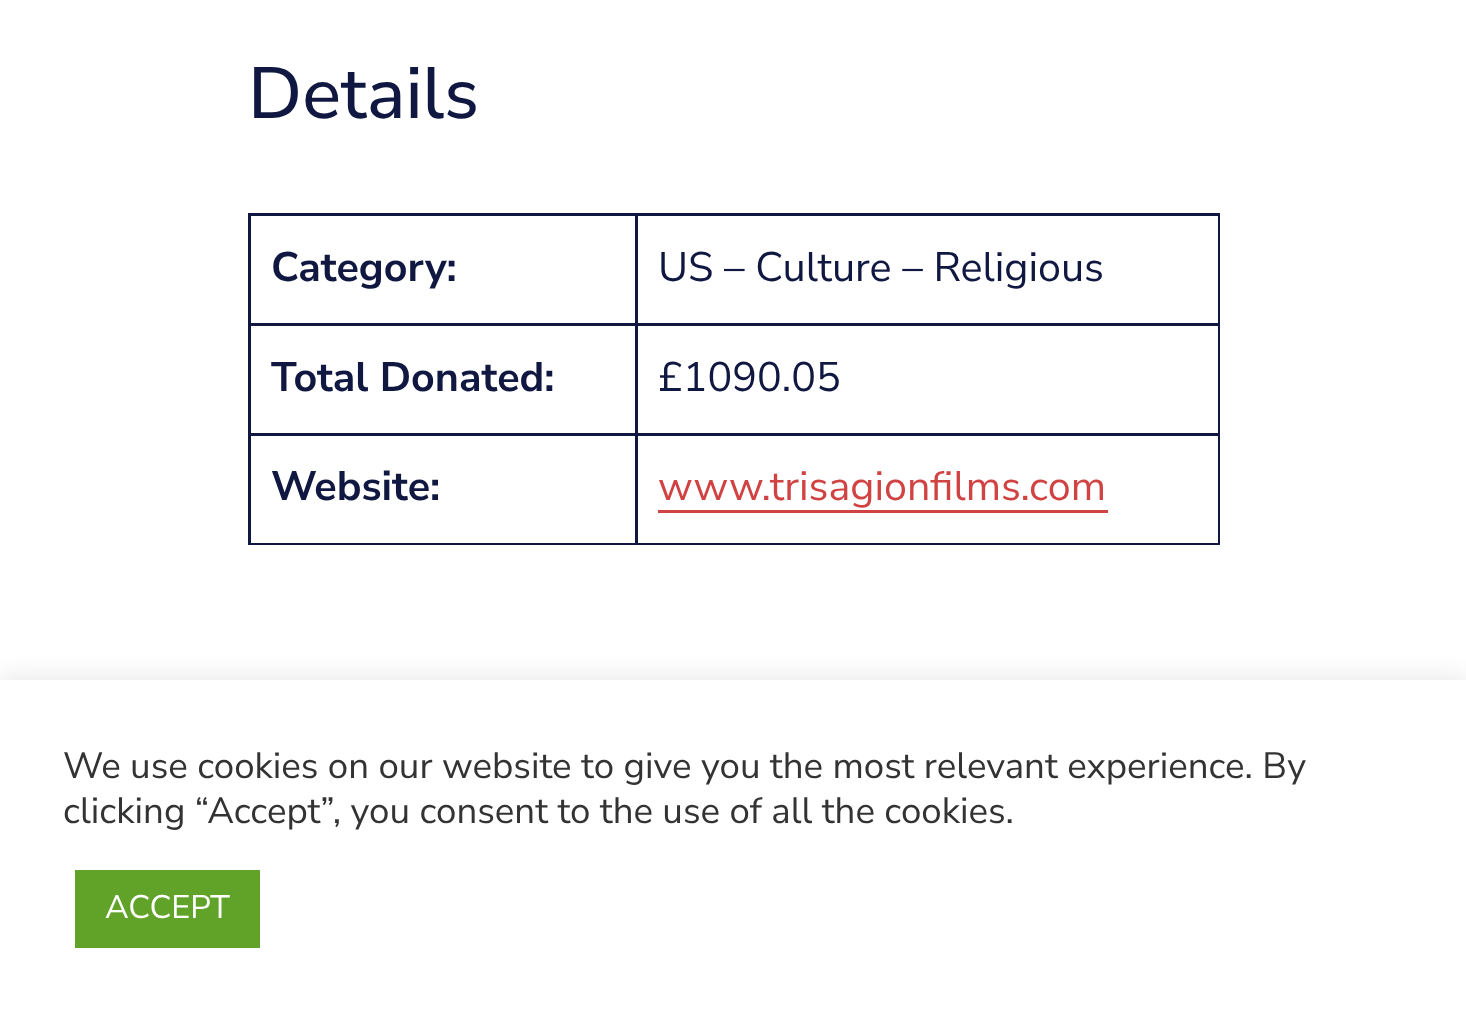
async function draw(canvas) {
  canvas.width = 1466
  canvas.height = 1021
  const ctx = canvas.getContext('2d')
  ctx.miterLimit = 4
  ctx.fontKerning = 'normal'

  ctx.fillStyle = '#fff'
  ctx.fillRect(0, 0, 1466, 1021)
  ctx.font = '500 72.5px Nunito Sans'
  ctx.fillStyle = '#101841'
  ctx.fillText('Details', 248, 118)
  ctx.fillRect(635, 213, 585, 3)
  ctx.fillRect(635, 323, 585, 3)
  ctx.fillRect(635, 433, 585, 3)
  ctx.fillRect(1218, 433, 2, 112)
  ctx.fillRect(635, 543, 585, 2)
  ctx.fillRect(635, 433, 3, 112)
  ctx.fillRect(248, 433, 390, 3)
  ctx.fillRect(635, 323, 3, 112)
  ctx.fillRect(248, 323, 390, 3)
  ctx.fillRect(635, 213, 3, 112)
  ctx.fillRect(248, 213, 390, 3)
  ctx.fillRect(248, 543, 390, 2)
  ctx.fillRect(248, 433, 3, 112)
  ctx.fillRect(248, 323, 3, 112)
  ctx.fillRect(248, 213, 3, 112)
  ctx.font = 'bold 41.25px Nunito Sans'
  ctx.fillText('Category:', 271, 281)
  ctx.fillRect(1218, 323, 2, 112)
  ctx.fillRect(1218, 213, 2, 112)
  ctx.font = '41.25px Nunito Sans'
  ctx.fillText('US – Culture – Religious', 658, 281)
  ctx.font = 'bold 41.25px Nunito Sans'
  ctx.fillText('Total Donated:', 271, 391)
  ctx.font = '41.25px Nunito Sans'
  ctx.fillText('£1090.05', 658, 391)
  ctx.font = 'bold 41.25px Nunito Sans'
  ctx.fillText('Website:', 271, 500)
  ctx.font = '41.25px Nunito Sans'
  ctx.fillStyle = '#d14343'
  ctx.fillText('www.trisagionfilms.com', 658, 500)
  ctx.fillRect(658, 510, 450, 3)
  ctx.fillStyle = '#acabab4d'
  ctx.filter = 'blur(12.5px)'
  ctx.beginPath()
  ctx.rect(0, 678, 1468, 342)
  ctx.fill()
  ctx.filter = 'none'
  ctx.fillStyle = '#fff'
  ctx.fillRect(0, 680, 1466, 341)
  ctx.font = '36.65px Nunito Sans'
  ctx.fillStyle = '#333'
  ctx.fillText('We use cookies on our website to give you the most relevant experience. By', 63, 778)
  ctx.fillText('clicking “Accept”, you consent to the use of all the cookies.', 63, 823)
  ctx.fillStyle = '#61a229'
  ctx.fillRect(75, 870, 185, 78)
  ctx.font = '32.5px Nunito Sans'
  ctx.fillStyle = '#fff'
  ctx.fillText('ACCEPT', 105, 918)
}

draw(document.querySelector('canvas'))
